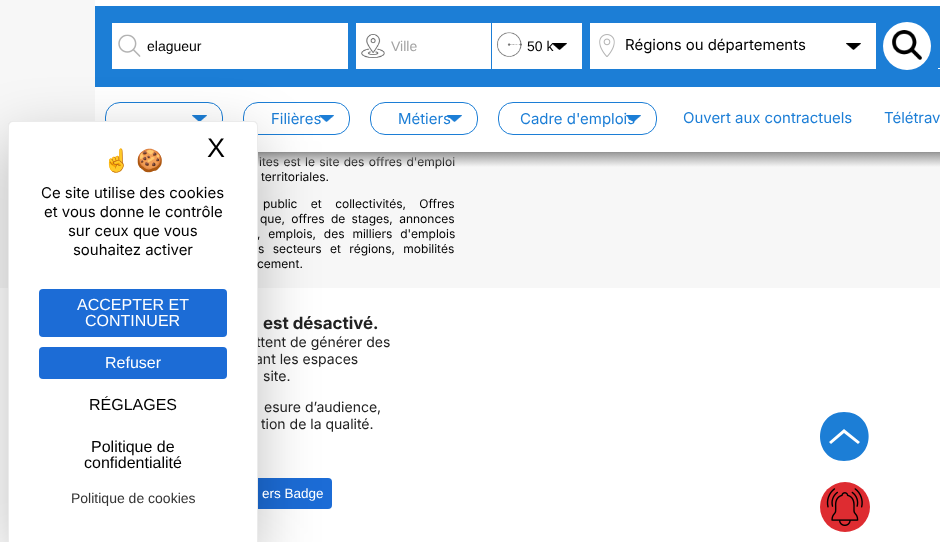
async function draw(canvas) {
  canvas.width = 940
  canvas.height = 542
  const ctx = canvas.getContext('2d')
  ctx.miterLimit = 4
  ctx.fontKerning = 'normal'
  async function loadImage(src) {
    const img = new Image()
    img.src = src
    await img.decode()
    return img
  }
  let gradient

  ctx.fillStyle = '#fff'
  ctx.fillRect(0, 0, 940, 542)
  ctx.fillStyle = '#f7f7f7'
  ctx.fillRect(0, 0, 940, 288)
  ctx.fillStyle = '#fff'
  ctx.fillRect(95, 0, 845, 152)
  ctx.fillStyle = '#808080'
  ctx.fillRect(258, 152, 682, 1)
  ctx.fillStyle = '#1c7ed6'
  ctx.fillRect(95, 6, 845, 81)
  ctx.fillStyle = '#fff'
  ctx.fillRect(112, 23, 236, 46)
  ctx.drawImage(await loadImage('image0.png'), 118, 34, 23, 23)
  ctx.font = '14px Liberation Sans'
  ctx.fillStyle = '#000'
  ctx.fillText('elagueur', 147, 51)
  ctx.fillStyle = '#fff'
  ctx.fillRect(356, 23, 135, 46)
  ctx.drawImage(await loadImage('image1.png'), 361, 34, 24, 24)
  ctx.fillStyle = '#a3a3a3'
  ctx.fillText('Ville', 391, 51)
  ctx.fillStyle = '#fff'
  ctx.fillRect(492, 23, 90, 46)
  ctx.drawImage(await loadImage('image2.png'), 497, 32, 25, 25)
  ctx.drawImage(await loadImage('image3.png'), 552, 43, 15, 7)
  ctx.fillStyle = '#000'
  ctx.fillText('50 k', 527, 51)
  ctx.fillStyle = '#fff'
  ctx.fillRect(590, 23, 286, 46)
  ctx.drawImage(await loadImage('image3.png'), 846, 43, 15, 7)
  ctx.drawImage(await loadImage('image4.png'), 599, 34, 16, 23)
  ctx.font = '15px "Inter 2"'
  ctx.fillStyle = '#000'
  ctx.fillText('Régions ou départements', 625, 50)
  ctx.fillStyle = '#fff'
  ctx.beginPath()
  ctx.arc(907, 46, 24, 0, 2 * Math.PI)
  ctx.fill()
  ctx.drawImage(await loadImage('image5.png'), 892, 30, 30, 30)
  ctx.fillRect(938, 68, 2, 1)
  ctx.drawImage(await loadImage('image6.png'), 192, 115, 15, 6)
  ctx.beginPath()
  ctx.roundRect(105.5, 102.5, 117, 32, 14.5)
  ctx.strokeStyle = '#1c7ed6'
  ctx.stroke()
  ctx.drawImage(await loadImage('image7.png'), 319, 115, 15, 7)
  ctx.beginPath()
  ctx.roundRect(243.5, 102.5, 106, 32, 14.5)
  ctx.stroke()
  ctx.fillStyle = '#1c7ed6'
  ctx.fillText('Filières', 271, 124)
  ctx.drawImage(await loadImage('image8.png'), 447, 115, 15, 7)
  ctx.beginPath()
  ctx.roundRect(370.5, 102.5, 107, 32, 14.5)
  ctx.stroke()
  ctx.fillText('Métiers', 398, 124)
  ctx.drawImage(await loadImage('image8.png'), 626, 115, 15, 7)
  ctx.beginPath()
  ctx.roundRect(498.5, 102.5, 158, 32, 14.5)
  ctx.stroke()
  ctx.fillText('Cadre d\'emplois', 520, 124)
  ctx.fillText('Ouvert aux contractuels', 683, 123)
  ctx.fillText('Télétrav', 884, 123)
  ctx.wordSpacing = '1px'
  ctx.font = '12px Inter'
  ctx.fillStyle = '#000'
  ctx.fillText('ites est le site des offres d\'emploi', 259, 166)
  gradient = ctx.createLinearGradient(565, 152, 565, 167)
  gradient.addColorStop(0, '#969696')
  gradient.addColorStop(1, '#96969600')
  ctx.fillStyle = gradient
  ctx.fillRect(258, 152, 682, 15)
  ctx.fillStyle = '#1c6cd6'
  ctx.beginPath()
  ctx.roundRect(116, 478, 216, 31, 4)
  ctx.fill()
  ctx.fillStyle = '#00000040'
  ctx.filter = 'blur(30px)'
  ctx.beginPath()
  ctx.roundRect(8, 141, 250, 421, 5)
  ctx.fill()
  ctx.filter = 'none'
  ctx.wordSpacing = '4.5px'
  ctx.fillStyle = '#000'
  ctx.fillText(', emplois, des milliers d\'emplois', 257, 238)
  ctx.wordSpacing = '0px'
  ctx.font = '14px Inter'
  ctx.fillStyle = '#222'
  ctx.fillText('ttent de générer des', 256, 347)
  ctx.fillText('ant les espaces', 255, 364)
  ctx.fillStyle = '#fff'
  ctx.beginPath()
  ctx.roundRect(8, 121, 250, 421, [5, 5, 0, 0])
  ctx.fill()
  ctx.fillStyle = '#00000014'
  ctx.beginPath()
  ctx.moveTo(13, 121)
  ctx.lineTo(253, 121)
  ctx.bezierCurveTo(256, 121, 258, 123, 258, 126)
  ctx.lineTo(258, 542)
  ctx.lineTo(8, 542)
  ctx.lineTo(8, 126)
  ctx.bezierCurveTo(8, 123, 10, 121, 13, 121)
  ctx.closePath()
  ctx.moveTo(13, 122)
  ctx.lineTo(253, 122)
  ctx.bezierCurveTo(255, 122, 257, 124, 257, 126)
  ctx.lineTo(257, 542)
  ctx.lineTo(9, 542)
  ctx.lineTo(9, 126)
  ctx.bezierCurveTo(9, 124, 11, 122, 13, 122)
  ctx.closePath()
  ctx.fill('evenodd')
  ctx.font = '22px Noto Color Emoji'
  ctx.fillStyle = '#000'
  ctx.fillText('☝️', 103, 168)
  ctx.fillText('🍪', 136, 168)
  ctx.font = '27px Liberation Sans'
  ctx.fillText('X', 207, 157)
  ctx.font = '15px "Inter 2"'
  ctx.fillText('Ce site utilise des cookies', 41, 198)
  ctx.fillText('et vous donne le contrôle', 44, 217)
  ctx.fillText('sur ceux que vous', 68, 236)
  ctx.fillText('souhaitez activer', 73, 255)
  ctx.fillStyle = '#1c6cd6'
  ctx.beginPath()
  ctx.roundRect(39, 289, 188, 48, 4)
  ctx.fill()
  ctx.font = '16px Liberation Sans'
  ctx.fillStyle = '#fff'
  ctx.fillText('ACCEPTER ET', 77, 310)
  ctx.fillText('CONTINUER', 85, 326)
  ctx.fillStyle = '#1c6cd6'
  ctx.beginPath()
  ctx.roundRect(39, 347, 188, 32, 4)
  ctx.fill()
  ctx.fillStyle = '#fff'
  ctx.fillText('Refuser', 105, 368)
  ctx.fillStyle = '#000'
  ctx.fillText('RÉGLAGES', 89, 410)
  ctx.fillText('Politique de', 91, 452)
  ctx.fillText('confidentialité', 84, 468)
  ctx.font = '14px Liberation Sans'
  ctx.fillStyle = '#333'
  ctx.fillText('Politique de cookies', 71, 503)
  ctx.font = '12px Inter'
  ctx.fillStyle = '#000'
  ctx.fillText('territoriales.', 261, 181)
  ctx.wordSpacing = '10px'
  ctx.fillText('public et collectivités, Offres', 263, 208)
  ctx.wordSpacing = '3px'
  ctx.fillText('que, offres de stages, annonces', 260, 223)
  ctx.wordSpacing = '5px'
  ctx.fillText('s secteurs et régions, mobilités', 258, 253)
  ctx.wordSpacing = '0px'
  ctx.fillText('cement.', 257, 268)
  ctx.font = 'bold 17px Inter'
  ctx.fillStyle = '#222'
  ctx.fillText('est désactivé.', 263, 329)
  ctx.font = '14px Inter'
  ctx.fillText('site.', 263, 381)
  ctx.fillText('esure d’audience,', 264, 412)
  ctx.fillText('tion de la qualité.', 261, 429)
  ctx.font = '13.5px Liberation Sans'
  ctx.fillStyle = '#fff'
  ctx.fillText('ers Badge', 262, 498)
  ctx.fillStyle = '#1c7ed6'
  ctx.beginPath()
  ctx.moveTo(844, 412)
  ctx.bezierCurveTo(812, 412, 812, 461, 844, 461)
  ctx.bezierCurveTo(877, 461, 877, 412, 844, 412)
  ctx.closePath()
  ctx.moveTo(858, 444)
  ctx.lineTo(844, 433)
  ctx.lineTo(831, 444)
  ctx.lineTo(829, 442)
  ctx.lineTo(844, 429)
  ctx.lineTo(860, 442)
  ctx.closePath()
  ctx.fill()
  ctx.fillStyle = '#de2c31'
  ctx.beginPath()
  ctx.arc(845, 507, 25, 0, 2 * Math.PI)
  ctx.fill()
  ctx.drawImage(await loadImage('image9.png'), 826, 488, 37, 38)
}

draw(document.querySelector('canvas'))
